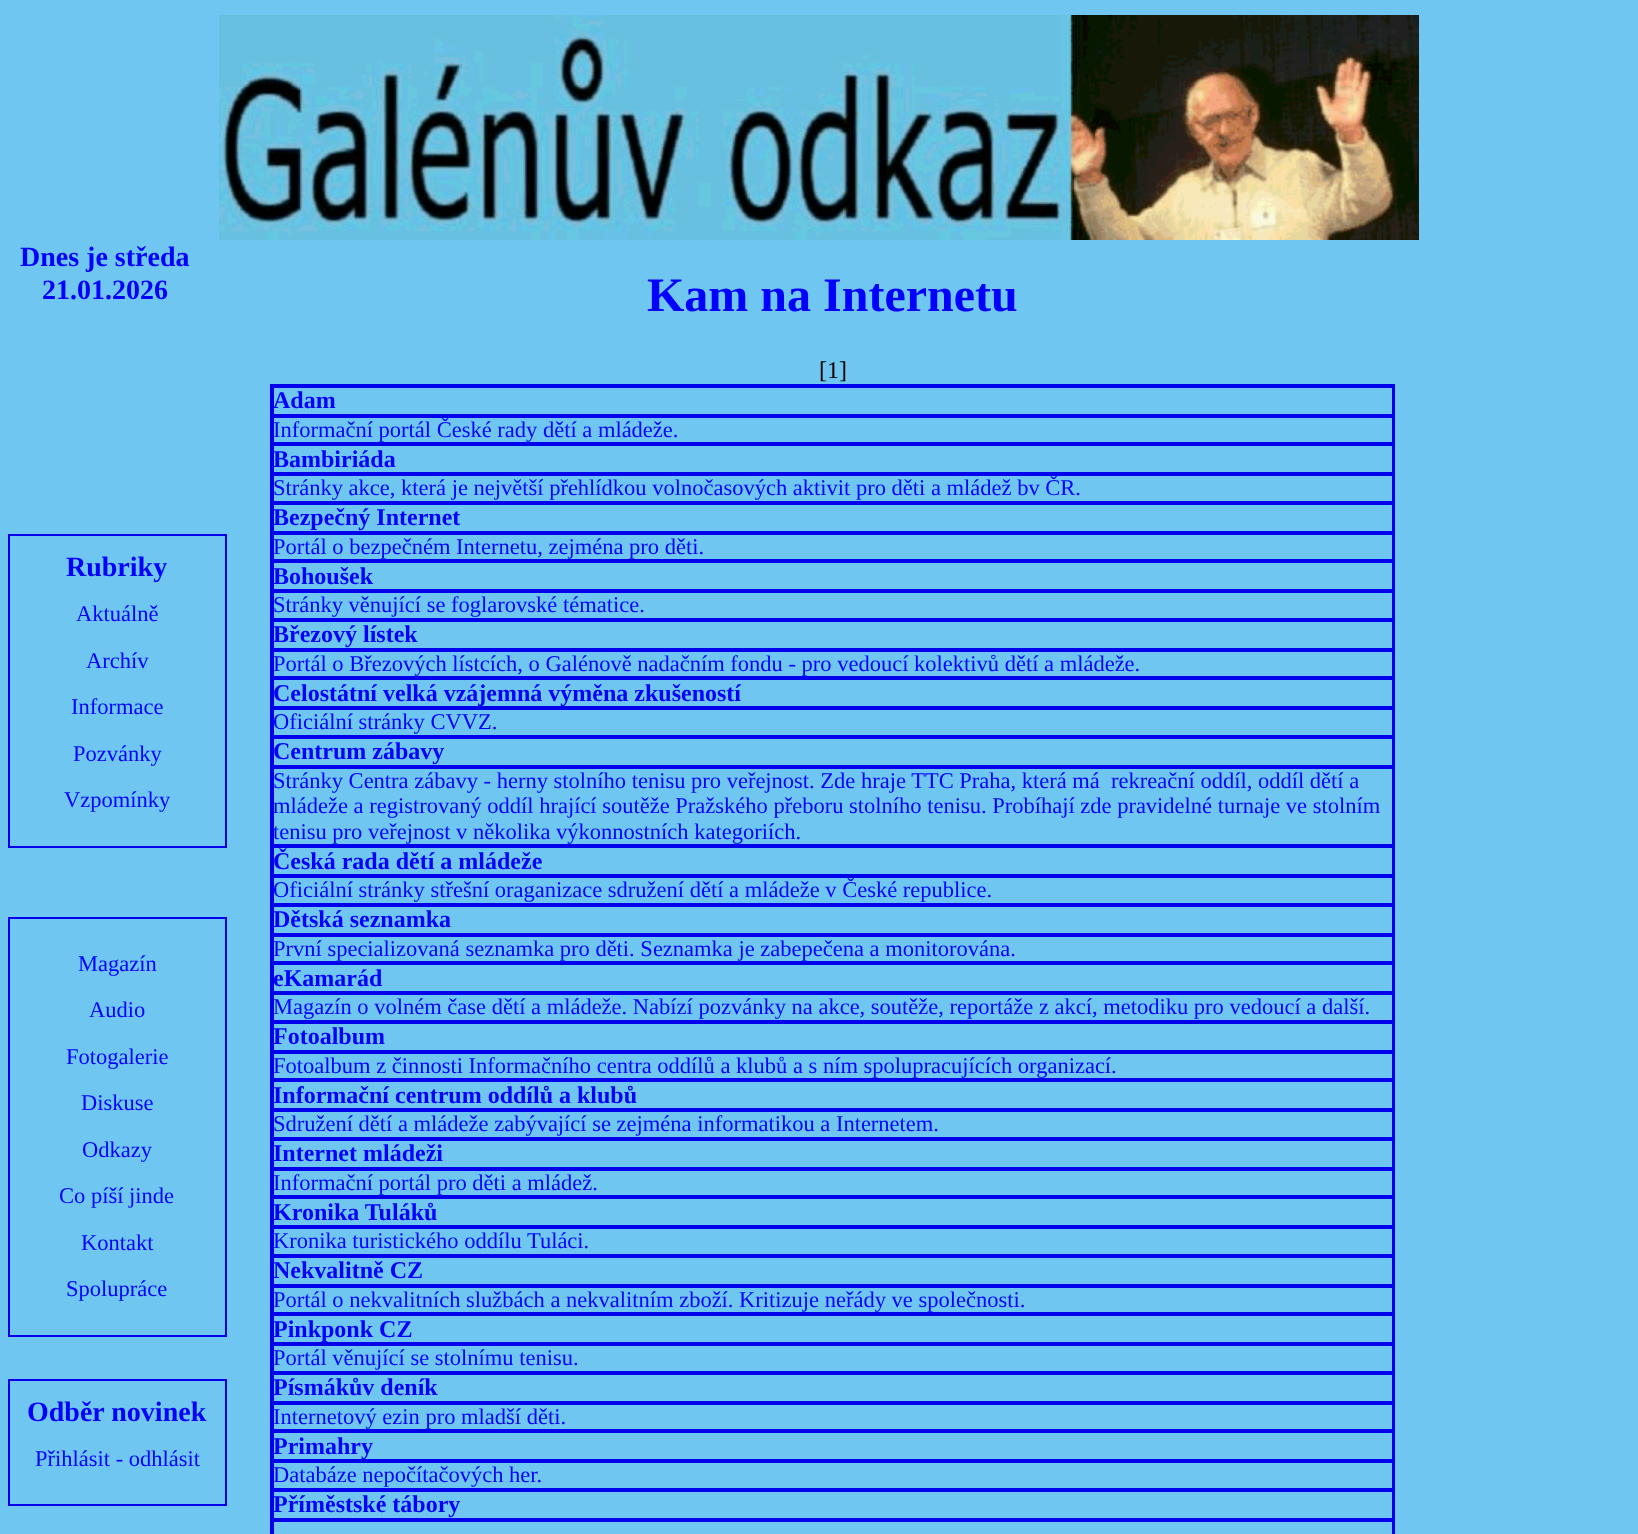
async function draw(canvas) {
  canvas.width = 1638
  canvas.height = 1534
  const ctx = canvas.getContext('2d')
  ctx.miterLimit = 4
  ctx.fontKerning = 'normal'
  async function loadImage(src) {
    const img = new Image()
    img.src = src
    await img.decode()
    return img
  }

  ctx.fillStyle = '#6ec6f1'
  ctx.fillRect(0, 0, 1638, 1534)
  ctx.drawImage(await loadImage('image0.png'), 219, 15, 1200, 225)
  ctx.font = 'bold 28px Liberation Serif'
  ctx.fillStyle = '#00f'
  ctx.fillText('Dnes je středa', 20, 266)
  ctx.fillText('21.01.2026', 42, 299)
  ctx.strokeStyle = '#0000ec'
  ctx.lineWidth = 2
  ctx.strokeRect(9, 535, 217, 312)
  ctx.fillText('Rubriky', 66, 576)
  ctx.font = '22.5px Liberation Serif'
  ctx.fillText('Aktuálně', 76, 621)
  ctx.fillText('Archív', 86, 668)
  ctx.fillText('Informace', 71, 714)
  ctx.fillText('Pozvánky', 73, 761)
  ctx.fillText('Vzpomínky', 64, 807)
  ctx.strokeRect(9, 918, 217, 418)
  ctx.fillText('Magazín', 78, 971)
  ctx.fillText('Audio', 89, 1017)
  ctx.fillText('Fotogalerie', 66, 1064)
  ctx.fillText('Diskuse', 81, 1110)
  ctx.fillText('Odkazy', 82, 1157)
  ctx.fillText('Co píší jinde', 59, 1203)
  ctx.fillText('Kontakt', 81, 1250)
  ctx.fillText('Spolupráce', 66, 1296)
  ctx.strokeRect(9, 1380, 217, 125)
  ctx.font = 'bold 28px Liberation Serif'
  ctx.fillText('Odběr novinek', 27, 1421)
  ctx.font = '22.5px Liberation Serif'
  ctx.fillText('Přihlásit - odhlásit', 35, 1466)
  ctx.font = 'bold 48px Liberation Serif'
  ctx.fillText('Kam na Internetu', 647, 311)
  ctx.font = '24px Liberation Serif'
  ctx.fillStyle = '#000'
  ctx.fillText('[1]', 819, 378)
  ctx.strokeRect(271, 385, 1123, 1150)
  ctx.strokeRect(273, 387, 1120, 28)
  ctx.font = 'bold 24px Liberation Serif'
  ctx.fillStyle = '#00f'
  ctx.fillText('Adam', 273, 408)
  ctx.strokeRect(273, 417, 1120, 26)
  ctx.font = '22.5px Liberation Serif'
  ctx.fillText('Informační portál České rady dětí a mládeže.', 273, 437)
  ctx.strokeRect(273, 445, 1120, 28)
  ctx.font = 'bold 24px Liberation Serif'
  ctx.fillText('Bambiriáda', 273, 467)
  ctx.strokeRect(273, 475, 1120, 27)
  ctx.font = '22.5px Liberation Serif'
  ctx.fillText('Stránky akce, která je největší přehlídkou volnočasových aktivit pro děti a mládež bv ČR.', 273, 495)
  ctx.strokeRect(273, 504, 1120, 28)
  ctx.font = 'bold 24px Liberation Serif'
  ctx.fillText('Bezpečný Internet', 273, 525)
  ctx.strokeRect(273, 534, 1120, 26)
  ctx.font = '22.5px Liberation Serif'
  ctx.fillText('Portál o bezpečném Internetu, zejména pro děti.', 273, 554)
  ctx.strokeRect(273, 562, 1120, 28)
  ctx.font = 'bold 24px Liberation Serif'
  ctx.fillText('Bohoušek', 273, 584)
  ctx.strokeRect(273, 592, 1120, 27)
  ctx.font = '22.5px Liberation Serif'
  ctx.fillText('Stránky věnující se foglarovské tématice.', 273, 612)
  ctx.strokeRect(273, 621, 1120, 28)
  ctx.font = 'bold 24px Liberation Serif'
  ctx.fillText('Březový lístek', 273, 642)
  ctx.strokeRect(273, 651, 1120, 26)
  ctx.font = '22.5px Liberation Serif'
  ctx.fillText('Portál o Březových lístcích, o Galénově nadačním fondu - pro vedoucí kolektivů dětí a mládeže.', 273, 671)
  ctx.strokeRect(273, 679, 1120, 28)
  ctx.font = 'bold 24px Liberation Serif'
  ctx.fillText('Celostátní velká vzájemná výměna zkušeností', 273, 701)
  ctx.strokeRect(273, 709, 1120, 27)
  ctx.font = '22.5px Liberation Serif'
  ctx.fillText('Oficiální stránky CVVZ.', 273, 729)
  ctx.strokeRect(273, 738, 1120, 28)
  ctx.font = 'bold 24px Liberation Serif'
  ctx.fillText('Centrum zábavy', 273, 759)
  ctx.strokeRect(273, 768, 1120, 77)
  ctx.font = '22.5px Liberation Serif'
  ctx.fillText('Stránky Centra zábavy - herny stolního tenisu pro veřejnost. Zde hraje TTC Praha, která má  rekreační oddíl, oddíl dětí a', 273, 788)
  ctx.fillText('mládeže a registrovaný oddíl hrající soutěže Pražského přeboru stolního tenisu. Probíhají zde pravidelné turnaje ve stolním', 273, 813)
  ctx.fillText('tenisu pro veřejnost v několika výkonnostních kategoriích.', 273, 839)
  ctx.strokeRect(273, 847, 1120, 28)
  ctx.font = 'bold 24px Liberation Serif'
  ctx.fillText('Česká rada dětí a mládeže', 273, 869)
  ctx.strokeRect(273, 877, 1120, 27)
  ctx.font = '22.5px Liberation Serif'
  ctx.fillText('Oficiální stránky střešní oraganizace sdružení dětí a mládeže v České republice.', 273, 897)
  ctx.strokeRect(273, 906, 1120, 28)
  ctx.font = 'bold 24px Liberation Serif'
  ctx.fillText('Dětská seznamka', 273, 927)
  ctx.strokeRect(273, 936, 1120, 26)
  ctx.font = '22.5px Liberation Serif'
  ctx.fillText('První specializovaná seznamka pro děti. Seznamka je zabepečena a monitorována.', 273, 956)
  ctx.strokeRect(273, 964, 1120, 28)
  ctx.font = 'bold 24px Liberation Serif'
  ctx.fillText('eKamarád', 273, 986)
  ctx.strokeRect(273, 994, 1120, 27)
  ctx.font = '22.5px Liberation Serif'
  ctx.fillText('Magazín o volném čase dětí a mládeže. Nabízí pozvánky na akce, soutěže, reportáže z akcí, metodiku pro vedoucí a další.', 273, 1014)
  ctx.strokeRect(273, 1023, 1120, 28)
  ctx.font = 'bold 24px Liberation Serif'
  ctx.fillText('Fotoalbum', 273, 1044)
  ctx.strokeRect(273, 1053, 1120, 26)
  ctx.font = '22.5px Liberation Serif'
  ctx.fillText('Fotoalbum z činnosti Informačního centra oddílů a klubů a s ním spolupracujících organizací.', 273, 1073)
  ctx.strokeRect(273, 1081, 1120, 28)
  ctx.font = 'bold 24px Liberation Serif'
  ctx.fillText('Informační centrum oddílů a klubů', 273, 1103)
  ctx.strokeRect(273, 1111, 1120, 27)
  ctx.font = '22.5px Liberation Serif'
  ctx.fillText('Sdružení dětí a mládeže zabývající se zejména informatikou a Internetem.', 273, 1131)
  ctx.strokeRect(273, 1140, 1120, 28)
  ctx.font = 'bold 24px Liberation Serif'
  ctx.fillText('Internet mládeži', 273, 1161)
  ctx.strokeRect(273, 1170, 1120, 26)
  ctx.font = '22.5px Liberation Serif'
  ctx.fillText('Informační portál pro děti a mládež.', 273, 1190)
  ctx.strokeRect(273, 1198, 1120, 28)
  ctx.font = 'bold 24px Liberation Serif'
  ctx.fillText('Kronika Tuláků', 273, 1220)
  ctx.strokeRect(273, 1228, 1120, 27)
  ctx.font = '22.5px Liberation Serif'
  ctx.fillText('Kronika turistického oddílu Tuláci.', 273, 1248)
  ctx.strokeRect(273, 1257, 1120, 28)
  ctx.font = 'bold 24px Liberation Serif'
  ctx.fillText('Nekvalitně CZ', 273, 1278)
  ctx.strokeRect(273, 1287, 1120, 26)
  ctx.font = '22.5px Liberation Serif'
  ctx.fillText('Portál o nekvalitních službách a nekvalitním zboží. Kritizuje neřády ve společnosti.', 273, 1307)
  ctx.strokeRect(273, 1315, 1120, 28)
  ctx.font = 'bold 24px Liberation Serif'
  ctx.fillText('Pinkponk CZ', 273, 1337)
  ctx.strokeRect(273, 1345, 1120, 27)
  ctx.font = '22.5px Liberation Serif'
  ctx.fillText('Portál věnující se stolnímu tenisu.', 273, 1365)
  ctx.strokeRect(273, 1374, 1120, 28)
  ctx.font = 'bold 24px Liberation Serif'
  ctx.fillText('Písmákův deník', 273, 1395)
  ctx.strokeRect(273, 1404, 1120, 26)
  ctx.font = '22.5px Liberation Serif'
  ctx.fillText('Internetový ezin pro mladší děti.', 273, 1424)
  ctx.strokeRect(273, 1432, 1120, 28)
  ctx.font = 'bold 24px Liberation Serif'
  ctx.fillText('Primahry', 273, 1454)
  ctx.strokeRect(273, 1462, 1120, 27)
  ctx.font = '22.5px Liberation Serif'
  ctx.fillText('Databáze nepočítačových her.', 273, 1482)
  ctx.strokeRect(273, 1491, 1120, 28)
  ctx.font = 'bold 24px Liberation Serif'
  ctx.fillText('Příměstské tábory', 273, 1512)
  ctx.strokeRect(273, 1521, 1120, 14)
}

draw(document.querySelector('canvas'))
